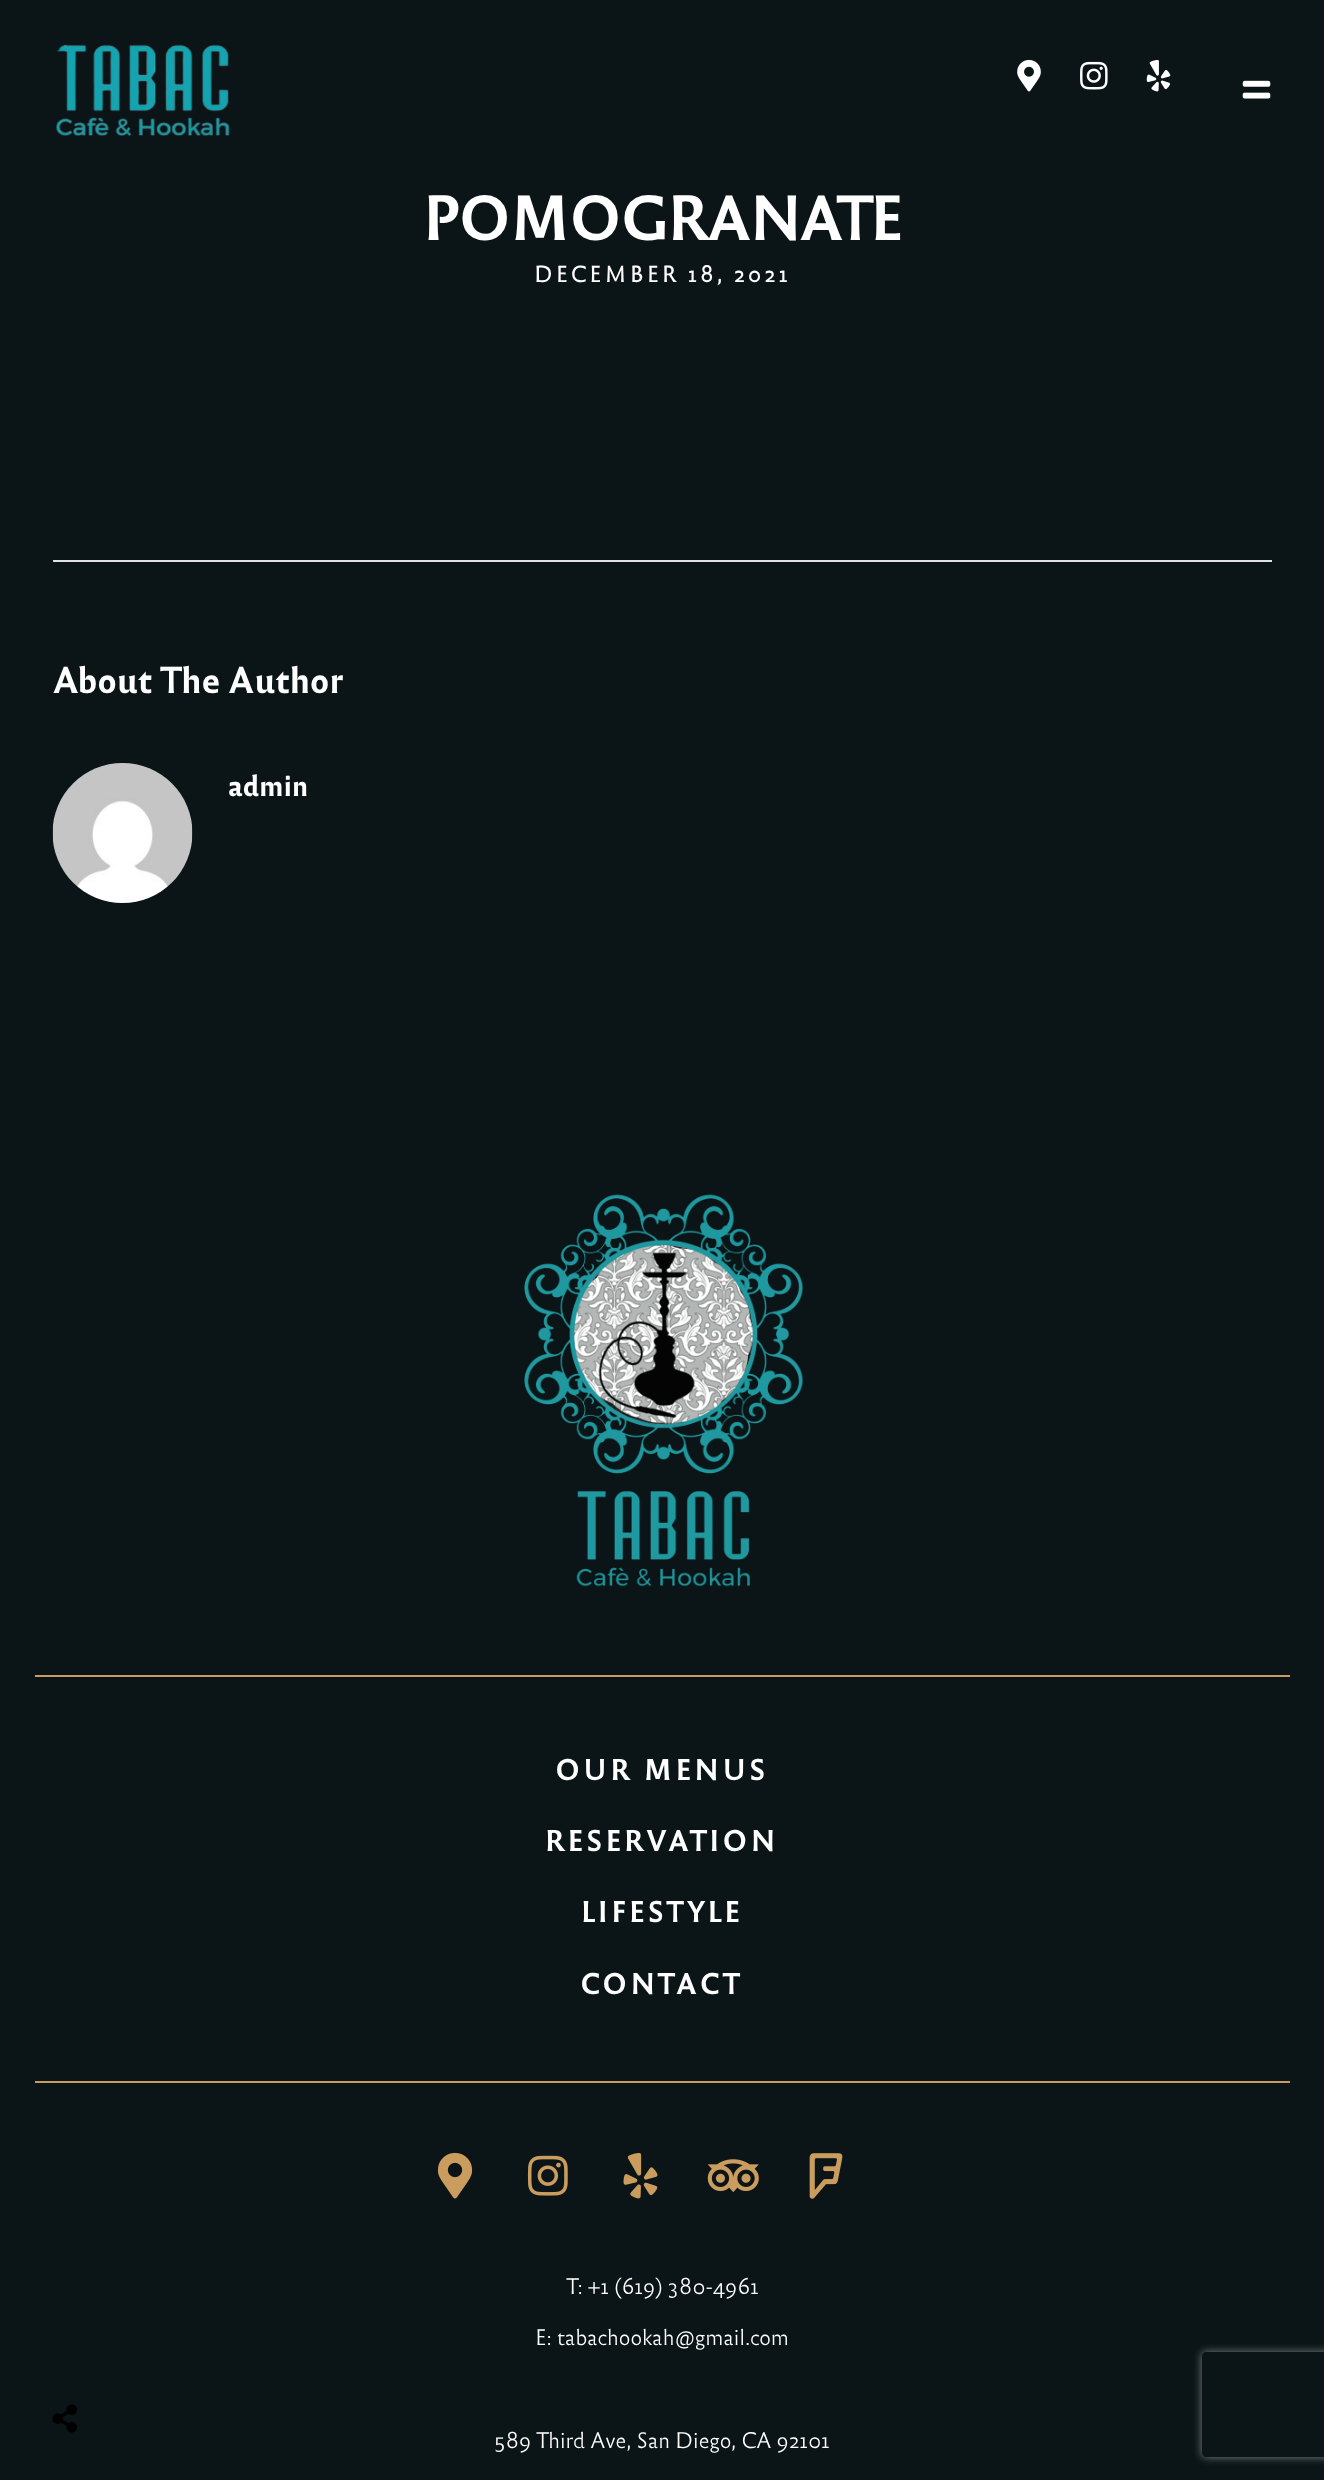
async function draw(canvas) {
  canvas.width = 1324
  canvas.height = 2480
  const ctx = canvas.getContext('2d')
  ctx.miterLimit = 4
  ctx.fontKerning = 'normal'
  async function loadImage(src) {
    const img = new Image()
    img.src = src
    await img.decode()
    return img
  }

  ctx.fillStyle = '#0b1517'
  ctx.fillRect(0, 0, 1324, 2480)
  ctx.drawImage(await loadImage('image0.png'), 56, 44, 174, 92)
  ctx.drawImage(await loadImage('image1.png'), 1017, 59, 24, 33)
  ctx.drawImage(await loadImage('image2.png'), 1080, 61, 28, 29)
  ctx.drawImage(await loadImage('image3.png'), 1146, 59, 25, 33)
  ctx.drawImage(await loadImage('image4.png'), 1242, 80, 29, 19)
  ctx.letterSpacing = '-1.75px'
  ctx.font = 'bold 59.5px "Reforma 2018"'
  ctx.fillStyle = '#fff'
  ctx.fillText('POMOGRANATE', 423, 240)
  ctx.letterSpacing = '3.5px'
  ctx.font = 'bold 21px "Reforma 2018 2"'
  ctx.fillText('DECEMBER 18, 2021', 534, 282)
  ctx.fillStyle = '#e1e1e1'
  ctx.fillRect(53, 560, 1219, 2)
  ctx.letterSpacing = '0px'
  ctx.font = 'bold 35px "Reforma 2018"'
  ctx.fillStyle = '#fff'
  ctx.fillText('About The Author', 53, 693)
  ctx.drawImage(await loadImage('image5.png'), 52, 763, 141, 140)
  ctx.font = 'bold 28px "Reforma 2018"'
  ctx.fillText('admin', 228, 796)
  ctx.drawImage(await loadImage('image6.png'), 52, 2404, 25, 29)
  ctx.drawImage(await loadImage('image7.png'), 524, 1194, 280, 393)
  ctx.fillStyle = '#ca9c5e'
  ctx.fillRect(35, 1675, 1255, 2)
  ctx.fillRect(35, 2081, 1255, 2)
  ctx.letterSpacing = '3.1px'
  ctx.fillStyle = '#fff'
  ctx.fillText('OUR MENUS', 555, 1780)
  ctx.fillText('RESERVATION', 545, 1851)
  ctx.fillText('LIFESTYLE', 581, 1922)
  ctx.fillText('CONTACT', 580, 1994)
  ctx.drawImage(await loadImage('image8.png'), 437, 2152, 36, 47)
  ctx.drawImage(await loadImage('image9.png'), 527, 2155, 41, 41)
  ctx.drawImage(await loadImage('image10.png'), 623, 2152, 35, 47)
  ctx.drawImage(await loadImage('image11.png'), 707, 2159, 52, 33)
  ctx.drawImage(await loadImage('image12.png'), 809, 2153, 34, 46)
  ctx.letterSpacing = '0px'
  ctx.font = '300 21px "Reforma 2018"'
  ctx.fillText('T: +1 (619) 380-4961', 566, 2294)
  ctx.fillText('E: tabachookah@gmail.com', 535, 2345)
  ctx.fillText('589 Third Ave, San Diego, CA 92101', 494, 2448)
  ctx.save()
  ctx.beginPath()
  ctx.moveTo(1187, 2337)
  ctx.lineTo(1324, 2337)
  ctx.lineTo(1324, 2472)
  ctx.lineTo(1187, 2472)
  ctx.closePath()
  ctx.moveTo(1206, 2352)
  ctx.lineTo(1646, 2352)
  ctx.bezierCurveTo(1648, 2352, 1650, 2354, 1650, 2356)
  ctx.lineTo(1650, 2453)
  ctx.bezierCurveTo(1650, 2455, 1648, 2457, 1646, 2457)
  ctx.lineTo(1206, 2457)
  ctx.bezierCurveTo(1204, 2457, 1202, 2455, 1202, 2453)
  ctx.lineTo(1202, 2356)
  ctx.bezierCurveTo(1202, 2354, 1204, 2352, 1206, 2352)
  ctx.closePath()
  ctx.clip('evenodd')
  ctx.fillStyle = '#808080'
  ctx.filter = 'blur(4.5px)'
  ctx.beginPath()
  ctx.roundRect(1202, 2352, 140, 105, 4)
  ctx.fill()
  ctx.filter = 'none'
  ctx.restore()
}

draw(document.querySelector('canvas'))
